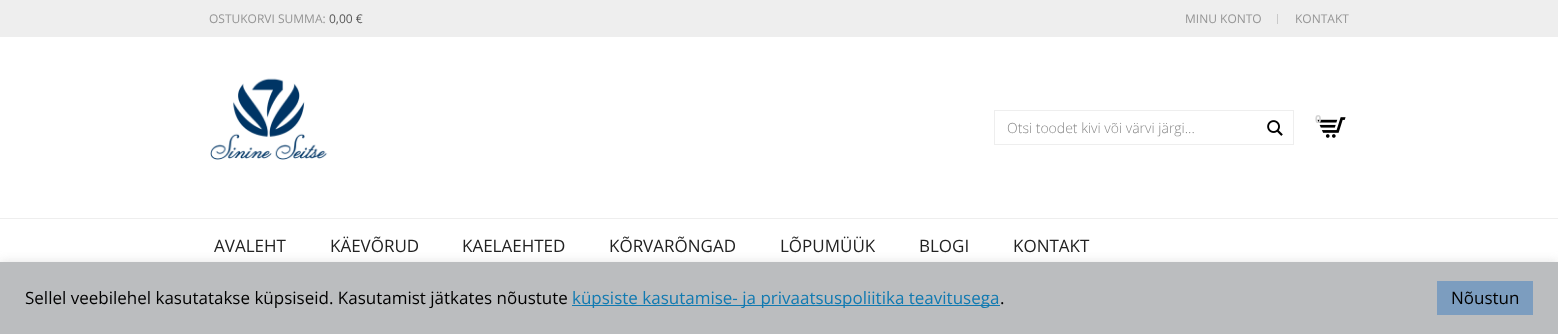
async function draw(canvas) {
  canvas.width = 1558
  canvas.height = 334
  const ctx = canvas.getContext('2d')
  ctx.miterLimit = 4
  ctx.fontKerning = 'normal'
  async function loadImage(src) {
    const img = new Image()
    img.src = src
    await img.decode()
    return img
  }

  ctx.fillStyle = '#fff'
  ctx.fillRect(0, 0, 1558, 334)
  ctx.fillStyle = '#eee'
  ctx.fillRect(0, 0, 1558, 37)
  ctx.font = '12px Open Sans'
  ctx.fillStyle = '#959595'
  ctx.fillText('OSTUKORVI SUMMA:', 209, 23)
  ctx.fillStyle = '#555'
  ctx.fillText('0,00 €', 329, 23)
  ctx.fillStyle = '#959595'
  ctx.fillText('MINU KONTO', 1185, 23)
  ctx.fillStyle = '#c9c9c9'
  ctx.fillRect(1277, 14, 1, 10)
  ctx.fillStyle = '#959595'
  ctx.fillText('KONTAKT', 1295, 23)
  ctx.drawImage(await loadImage('image0.png'), 210, 78, 118, 82)
  ctx.drawImage(await loadImage('image1.png'), 1317, 117, 29, 21)
  ctx.font = 'bold 11px Open Sans'
  ctx.fillStyle = '#d3d3d3'
  ctx.fillText('0', 1315, 123)
  ctx.strokeStyle = '#eee'
  ctx.strokeRect(994.5, 110.5, 299, 34)
  ctx.font = '300 14px Open Sans'
  ctx.fillStyle = '#888'
  ctx.fillText('Otsi toodet kivi või värvi järgi...', 1007, 133)
  ctx.drawImage(await loadImage('image2.png'), 1267, 120, 16, 16)
  ctx.fillStyle = '#eee'
  ctx.fillRect(0, 218, 1558, 1)
  ctx.font = '17px Open Sans'
  ctx.fillStyle = '#222'
  ctx.fillText('AVALEHT', 214, 252)
  ctx.fillText('KÄEVÕRUD', 330, 252)
  ctx.fillText('KAELAEHTED', 462, 252)
  ctx.fillText('KÕRVARÕNGAD', 609, 252)
  ctx.fillText('LÕPUMÜÜK', 780, 252)
  ctx.fillText('BLOGI', 919, 252)
  ctx.fillText('KONTAKT', 1013, 252)
  ctx.fillStyle = '#acabab4d'
  ctx.filter = 'blur(5px)'
  ctx.beginPath()
  ctx.rect(0, 261, 1558, 72)
  ctx.fill()
  ctx.filter = 'none'
  ctx.fillStyle = '#bbbdbf'
  ctx.fillRect(0, 262, 1558, 72)
  ctx.fillStyle = '#000'
  ctx.fillText('Sellel veebilehel kasutatakse küpsiseid. Kasutamist jätkates nõustute', 25, 304)
  ctx.fillStyle = '#117ab1'
  ctx.fillRect(572, 305, 428, 1)
  ctx.fillText('küpsiste kasutamise- ja privaatsuspoliitika teavitusega', 572, 304)
  ctx.fillStyle = '#000'
  ctx.fillText('.', 1000, 304)
  ctx.fillStyle = '#7c9dbf'
  ctx.fillRect(1437, 281, 96, 34)
  ctx.fillStyle = '#000'
  ctx.fillText('Nõustun', 1451, 304)
}

draw(document.querySelector('canvas'))
